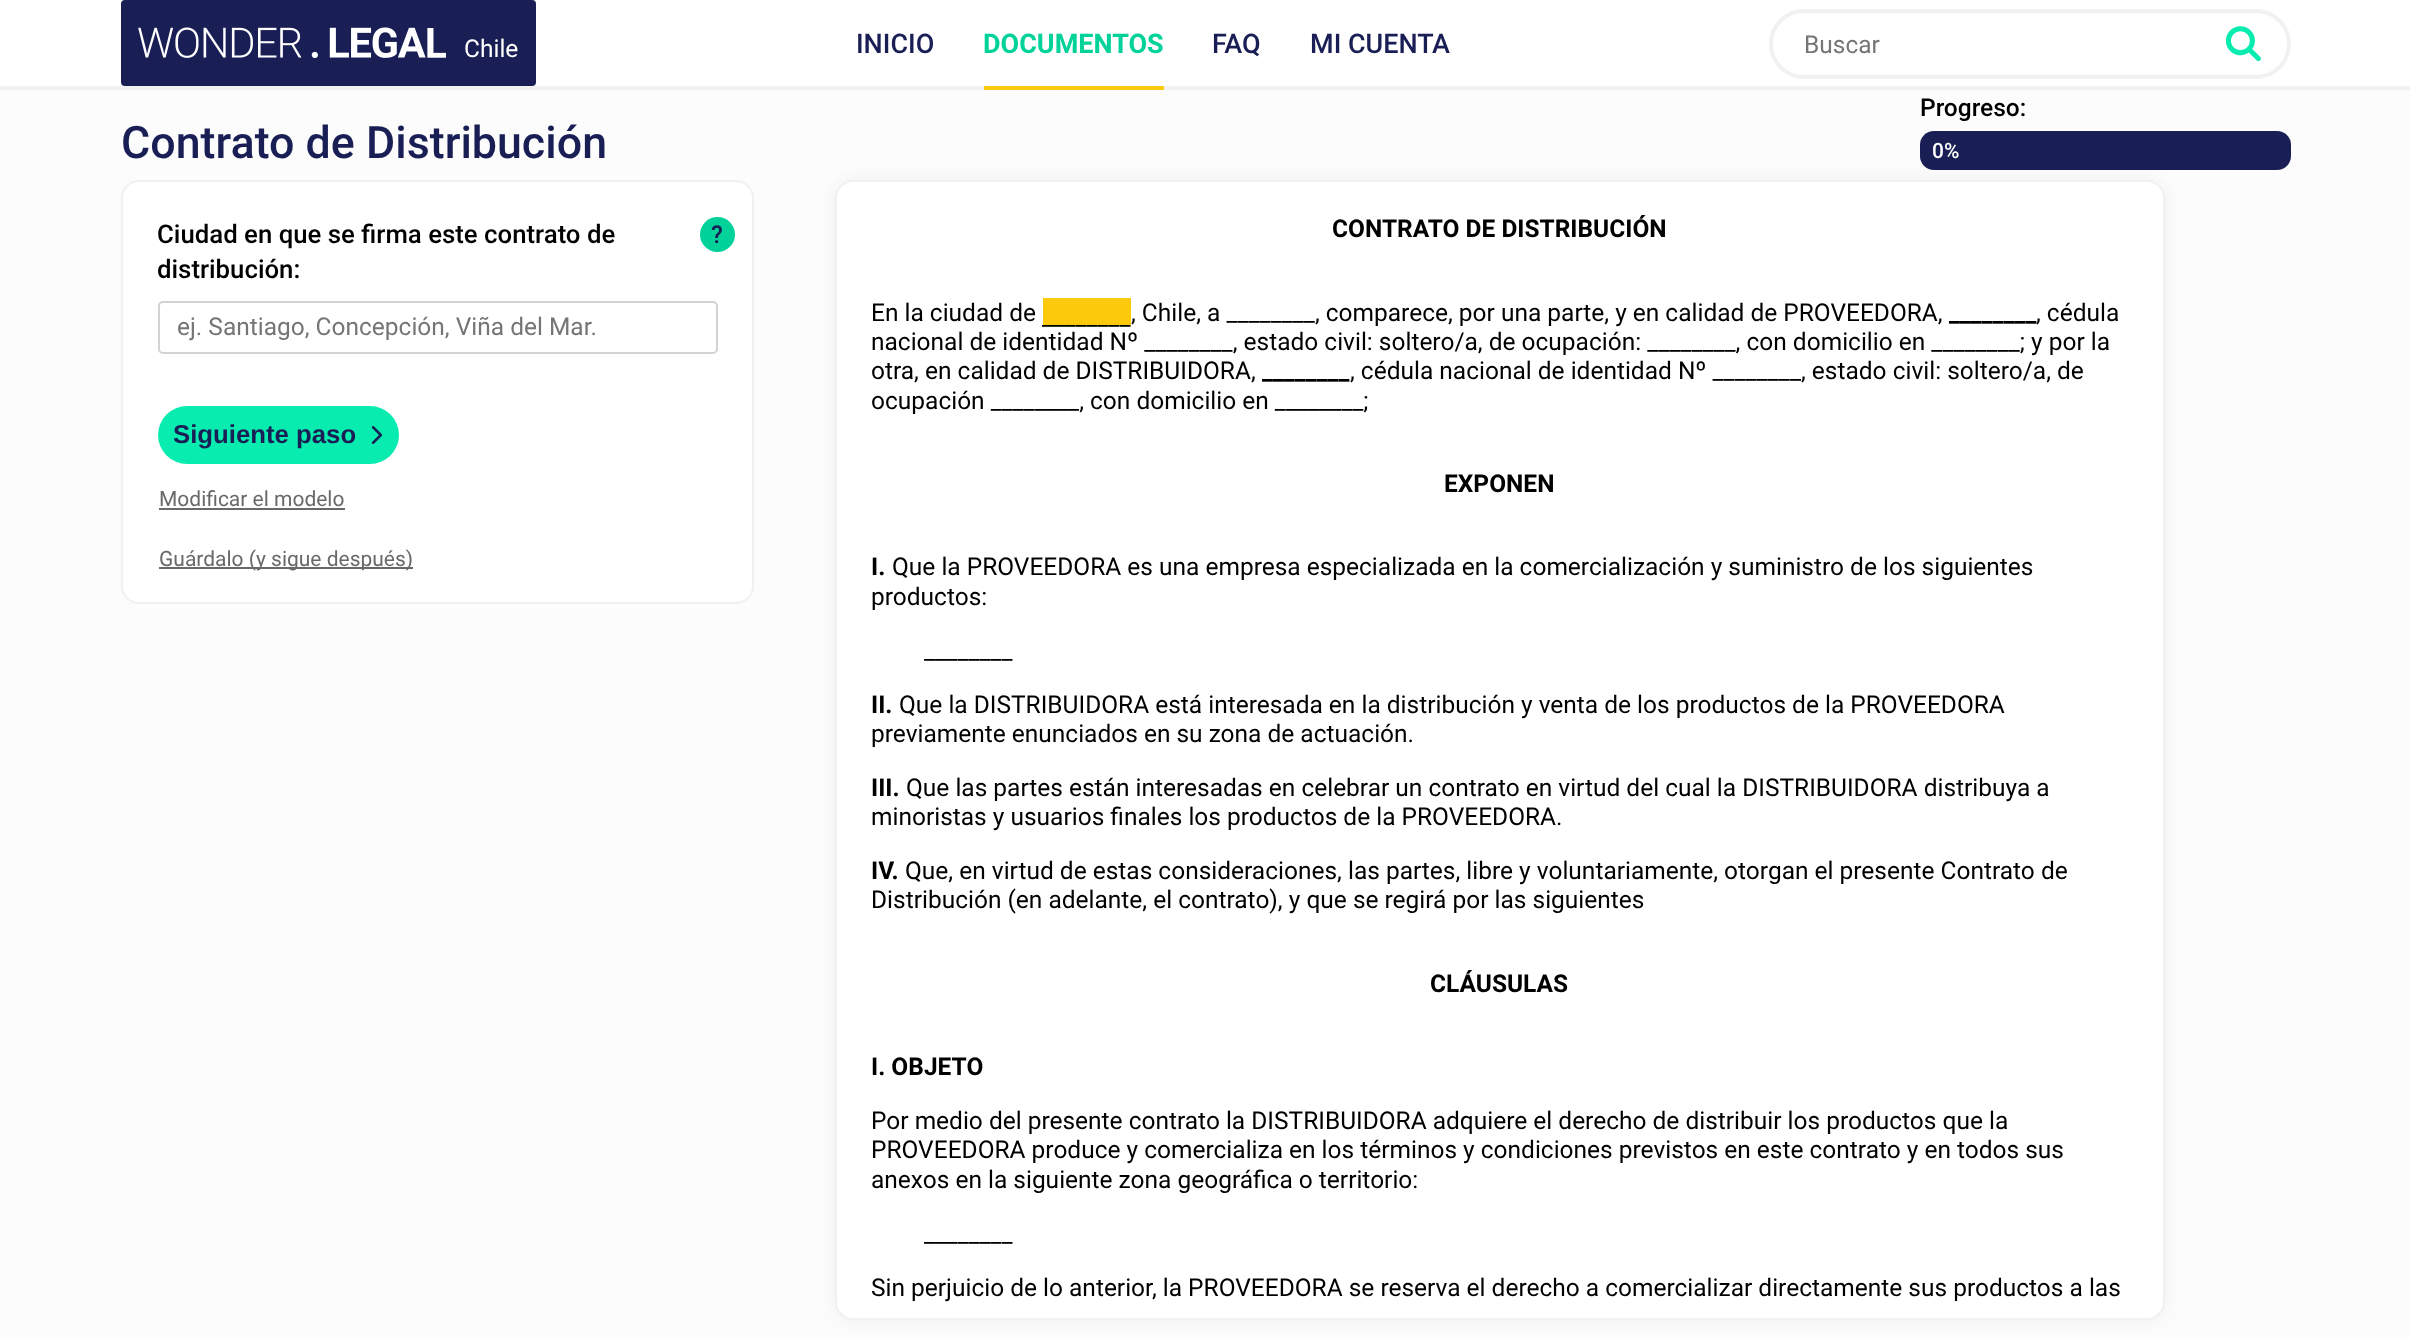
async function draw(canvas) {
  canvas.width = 2410
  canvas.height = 1337
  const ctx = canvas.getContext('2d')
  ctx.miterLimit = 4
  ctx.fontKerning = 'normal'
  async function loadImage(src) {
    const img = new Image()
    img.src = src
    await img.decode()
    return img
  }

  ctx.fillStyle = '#fcfcfc'
  ctx.fillRect(0, 0, 2410, 1337)
  ctx.fillStyle = '#fff'
  ctx.fillRect(0, 0, 2410, 86)
  ctx.fillStyle = '#f1f1f1'
  ctx.fillRect(0, 86, 2410, 4)
  ctx.fillStyle = '#191e55'
  ctx.beginPath()
  ctx.roundRect(121, 0, 415, 86, 4)
  ctx.fill()
  ctx.drawImage(await loadImage('image0.png'), 138, 27, 308, 32)
  ctx.font = '24.5px Roboto'
  ctx.fillStyle = '#fff'
  ctx.fillText('Chile', 464, 57)
  ctx.font = '500 27px Roboto'
  ctx.fillStyle = '#191e55'
  ctx.fillText('INICIO', 856, 53)
  ctx.fillStyle = '#fcc90d'
  ctx.fillRect(984, 86, 180, 4)
  ctx.font = 'bold 27px Roboto'
  ctx.fillStyle = '#01d29a'
  ctx.fillText('DOCUMENTOS', 983, 53)
  ctx.font = '500 27px Roboto'
  ctx.fillStyle = '#191e55'
  ctx.fillText('FAQ', 1212, 53)
  ctx.fillText('MI CUENTA', 1310, 53)
  ctx.beginPath()
  ctx.roundRect(1771, 11, 518, 66, 33)
  ctx.strokeStyle = '#f1f1f1'
  ctx.lineWidth = 4
  ctx.stroke()
  ctx.font = '24.5px Roboto'
  ctx.fillStyle = '#757575'
  ctx.fillText('Buscar', 1804, 53)
  ctx.drawImage(await loadImage('image1.png'), 2226, 26, 35, 35)
  ctx.font = '500 44.75px Roboto'
  ctx.fillStyle = '#191e55'
  ctx.fillText('Contrato de Distribución', 121, 158)
  ctx.font = '500 24.5px Roboto'
  ctx.fillStyle = '#000'
  ctx.fillText('Progreso:', 1920, 116)
  ctx.fillStyle = '#0000000d'
  ctx.filter = 'blur(9px)'
  ctx.beginPath()
  ctx.roundRect(835, 180, 1330, 1140, 18)
  ctx.fill()
  ctx.filter = 'none'
  ctx.fillStyle = '#191e55'
  ctx.beginPath()
  ctx.roundRect(1920, 131, 371, 39, 14)
  ctx.fill()
  ctx.font = '500 21px Roboto'
  ctx.fillStyle = '#fff'
  ctx.fillText('0%', 1932, 158)
  ctx.beginPath()
  ctx.roundRect(122, 181, 631, 422, 17)
  ctx.fill()
  ctx.lineWidth = 2
  ctx.stroke()
  ctx.font = '500 25.75px Roboto'
  ctx.fillStyle = '#000'
  ctx.fillText('Ciudad en que se firma este contrato de', 157, 243)
  ctx.fillText('distribución:', 157, 278)
  ctx.fillStyle = '#01d29a'
  ctx.beginPath()
  ctx.arc(717.5, 234.5, 17.5, 0, 2 * Math.PI)
  ctx.fill()
  ctx.font = '500 24.5px Roboto'
  ctx.fillStyle = '#191e55'
  ctx.fillText('?', 711, 243)
  ctx.beginPath()
  ctx.roundRect(159, 302, 558, 51, 4)
  ctx.strokeStyle = '#d3d3d3'
  ctx.stroke()
  ctx.font = '24.5px Roboto'
  ctx.fillStyle = '#757575'
  ctx.fillText('ej. Santiago, Concepción, Viña del Mar.', 177, 335)
  ctx.fillStyle = '#08ecaf'
  ctx.beginPath()
  ctx.roundRect(158, 406, 241, 58, 29)
  ctx.fill()
  ctx.font = 'bold 25.75px Liberation Sans'
  ctx.fillStyle = '#191e55'
  ctx.fillText('Siguiente paso', 173, 443)
  ctx.drawImage(await loadImage('image2.png'), 371, 426, 12, 18)
  ctx.font = '21px Roboto'
  ctx.fillStyle = '#6b6868'
  ctx.fillText('Modificar el modelo', 159, 506)
  ctx.fillRect(159, 508, 186, 2)
  ctx.fillRect(159, 567, 254, 2)
  ctx.fillText('Guárdalo (y sigue después)', 159, 566)
  ctx.fillStyle = '#fff'
  ctx.beginPath()
  ctx.roundRect(836, 181, 1328, 1138, 17)
  ctx.fill()
  ctx.strokeStyle = '#f1f1f1'
  ctx.stroke()
  ctx.font = 'bold 24.5px Roboto'
  ctx.fillStyle = '#000'
  ctx.fillText('CONTRATO DE DISTRIBUCIÓN', 1332, 237)
  ctx.font = '24.5px Roboto'
  ctx.fillText('En la ciudad de', 871, 321)
  ctx.fillText(', Chile, a ________, comparece, por una parte, y en calidad de PROVEEDORA,', 1131, 321)
  ctx.font = 'bold 24.5px Roboto'
  ctx.fillText('________', 1949, 321)
  ctx.font = '24.5px Roboto'
  ctx.fillText(', cédula', 2036, 321)
  ctx.fillStyle = '#fcc90d'
  ctx.fillRect(1043, 298, 88, 28)
  ctx.fillStyle = '#000'
  ctx.fillText('________', 1042, 325)
  ctx.fillText('nacional de identidad Nº ________, estado civil: soltero/a, de ocupación: ________, con domicilio en ________; y por la', 871, 350)
  ctx.fillText('otra, en calidad de DISTRIBUIDORA,', 871, 379)
  ctx.font = 'bold 24.5px Roboto'
  ctx.fillText('________', 1262, 379)
  ctx.font = '24.5px Roboto'
  ctx.fillText(', cédula nacional de identidad Nº ________, estado civil: soltero/a, de', 1350, 379)
  ctx.fillText('ocupación ________, con domicilio en ________;', 871, 409)
  ctx.font = 'bold 24.5px Roboto'
  ctx.fillText('EXPONEN', 1444, 492)
  ctx.fillText('I.', 871, 575)
  ctx.font = '24.5px Roboto'
  ctx.fillText('Que la PROVEEDORA es una empresa especializada en la comercialización y suministro de los siguientes', 892, 575)
  ctx.fillText('productos:', 871, 605)
  ctx.fillText('________', 924, 659)
  ctx.font = 'bold 24.5px Roboto'
  ctx.fillText('II.', 871, 713)
  ctx.font = '24.5px Roboto'
  ctx.fillText('Que la DISTRIBUIDORA está interesada en la distribución y venta de los productos de la PROVEEDORA', 899, 713)
  ctx.fillText('previamente enunciados en su zona de actuación.', 871, 742)
  ctx.font = 'bold 24.5px Roboto'
  ctx.fillText('III.', 871, 796)
  ctx.font = '24.5px Roboto'
  ctx.fillText('Que las partes están interesadas en celebrar un contrato en virtud del cual la DISTRIBUIDORA distribuya a', 906, 796)
  ctx.fillText('minoristas y usuarios finales los productos de la PROVEEDORA.', 871, 825)
  ctx.font = 'bold 24.5px Roboto'
  ctx.fillText('IV.', 871, 879)
  ctx.font = '24.5px Roboto'
  ctx.fillText('Que, en virtud de estas consideraciones, las partes, libre y voluntariamente, otorgan el presente Contrato de', 905, 879)
  ctx.fillText('Distribución (en adelante, el contrato), y que se regirá por las siguientes', 871, 908)
  ctx.font = 'bold 24.5px Roboto'
  ctx.fillText('CLÁUSULAS', 1430, 992)
  ctx.fillText('I. OBJETO', 871, 1075)
  ctx.font = '24.5px Roboto'
  ctx.fillText('Por medio del presente contrato la DISTRIBUIDORA adquiere el derecho de distribuir los productos que la', 871, 1129)
  ctx.fillText('PROVEEDORA produce y comercializa en los términos y condiciones previstos en este contrato y en todos sus', 871, 1158)
  ctx.fillText('anexos en la siguiente zona geográfica o territorio:', 871, 1188)
  ctx.fillText('________', 924, 1242)
  ctx.fillText('Sin perjuicio de lo anterior, la PROVEEDORA se reserva el derecho a comercializar directamente sus productos a las', 871, 1296)
}

draw(document.querySelector('canvas'))
